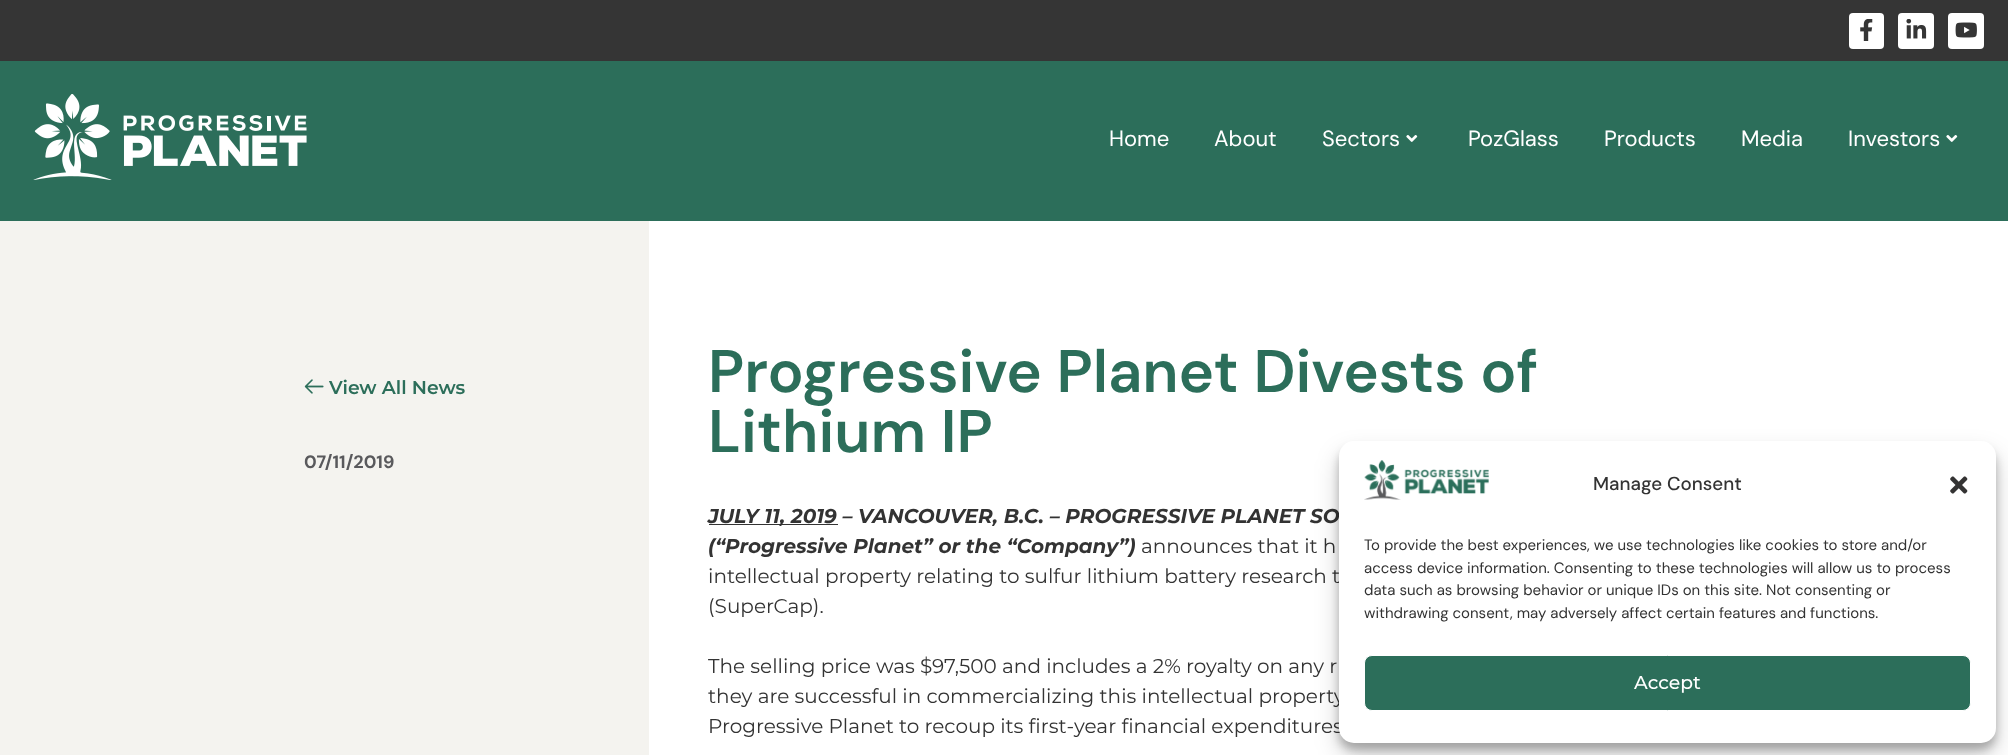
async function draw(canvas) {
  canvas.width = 2008
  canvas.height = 755
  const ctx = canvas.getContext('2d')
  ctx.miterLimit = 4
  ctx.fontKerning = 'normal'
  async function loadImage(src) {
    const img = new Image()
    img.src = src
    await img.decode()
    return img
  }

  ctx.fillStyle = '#f4f3ef'
  ctx.fillRect(0, 0, 2008, 755)
  ctx.fillStyle = '#fff'
  ctx.fillRect(649, 221, 1359, 534)
  ctx.fillStyle = '#353535'
  ctx.fillRect(0, 0, 2008, 61)
  ctx.fillStyle = '#fff'
  ctx.beginPath()
  ctx.roundRect(1849, 13, 35, 36, 4)
  ctx.fill()
  ctx.drawImage(await loadImage('image0.png'), 1860, 19, 13, 22)
  ctx.beginPath()
  ctx.roundRect(1898, 13, 36, 36, 4)
  ctx.fill()
  ctx.drawImage(await loadImage('image1.png'), 1906, 19, 21, 20)
  ctx.beginPath()
  ctx.roundRect(1948, 13, 36, 36, 4)
  ctx.fill()
  ctx.drawImage(await loadImage('image2.png'), 1955, 22, 22, 16)
  ctx.fillStyle = '#2c6e5a'
  ctx.fillRect(0, 61, 2008, 160)
  ctx.drawImage(await loadImage('image3.png'), 33, 94, 274, 86)
  ctx.font = '22px DM Sans'
  ctx.fillStyle = '#fff'
  ctx.fillText('Home', 1109, 146)
  ctx.fillText('About', 1214, 146)
  ctx.fillText('Sectors', 1322, 146)
  ctx.drawImage(await loadImage('image4.png'), 1406, 135, 12, 7)
  ctx.fillText('PozGlass', 1468, 146)
  ctx.fillText('Products', 1604, 146)
  ctx.fillText('Media', 1741, 146)
  ctx.fillText('Investors', 1848, 146)
  ctx.drawImage(await loadImage('image4.png'), 1946, 135, 12, 7)
  ctx.drawImage(await loadImage('image5.png'), 304, 379, 20, 15)
  ctx.font = '600 18.75px Montserrat'
  ctx.fillStyle = '#2c6e5a'
  ctx.fillText('View All News', 329, 394)
  ctx.font = 'bold 18px DM Sans'
  ctx.fillStyle = '#59595c'
  ctx.fillText('07/11/2019', 304, 468)
  ctx.font = '600 60px DM Sans'
  ctx.fillStyle = '#2c6e5a'
  ctx.fillText('Progressive Planet Divests of', 708, 392)
  ctx.fillText('Lithium IP', 708, 452)
  ctx.fillStyle = '#333'
  ctx.fillRect(709, 524, 129, 1)
  ctx.font = 'italic bold 20px Montserrat'
  ctx.fillText('JULY 11, 2019 – VANCOUVER, B.C. – PROGRESSIVE PLANET SO', 708, 523)
  ctx.fillText('(“Progressive Planet” or the “Company”)', 708, 553)
  ctx.font = '20px Montserrat'
  ctx.fillText('announces that it h', 1141, 553)
  ctx.fillText('intellectual property relating to sulfur lithium battery research t', 708, 583)
  ctx.fillText('(SuperCap).', 708, 613)
  ctx.fillText('The selling price was $97,500 and includes a 2% royalty on any r', 708, 673)
  ctx.fillText('they are successful in commercializing this intellectual property', 708, 703)
  ctx.fillText('Progressive Planet to recoup its first-year financial expenditures', 708, 733)
  ctx.fillStyle = '#0000003b'
  ctx.filter = 'blur(4px)'
  ctx.beginPath()
  ctx.roundRect(1339, 449, 657, 301, 15)
  ctx.fill()
  ctx.filter = 'none'
  ctx.fillStyle = '#00000030'
  ctx.filter = 'blur(12.5px)'
  ctx.beginPath()
  ctx.roundRect(1339, 454, 657, 301, 15)
  ctx.fill()
  ctx.filter = 'none'
  ctx.fillStyle = '#fff'
  ctx.beginPath()
  ctx.roundRect(1339, 441, 657, 302, 15)
  ctx.fill()
  ctx.drawImage(await loadImage('image6.png'), 1364, 460, 125, 40)
  ctx.font = '500 18.75px DM Sans'
  ctx.fillStyle = '#333'
  ctx.fillText('Manage Consent', 1593, 490)
  ctx.drawImage(await loadImage('image7.png'), 1950, 476, 18, 18)
  ctx.font = '15px DM Sans'
  ctx.fillText('To provide the best experiences, we use technologies like cookies to store and/or', 1364, 550)
  ctx.fillText('access device information. Consenting to these technologies will allow us to process', 1364, 573)
  ctx.fillText('data such as browsing behavior or unique IDs on this site. Not consenting or', 1364, 595)
  ctx.fillText('withdrawing consent, may adversely affect certain features and functions.', 1364, 618)
  ctx.fillStyle = '#2c6e5a'
  ctx.beginPath()
  ctx.roundRect(1364.5, 655.5, 606, 55, 7.5)
  ctx.fill()
  ctx.strokeStyle = '#fff'
  ctx.stroke()
  ctx.font = '500 18.75px Montserrat'
  ctx.fillStyle = '#fff'
  ctx.fillText('Accept', 1634, 689)
}

draw(document.querySelector('canvas'))
